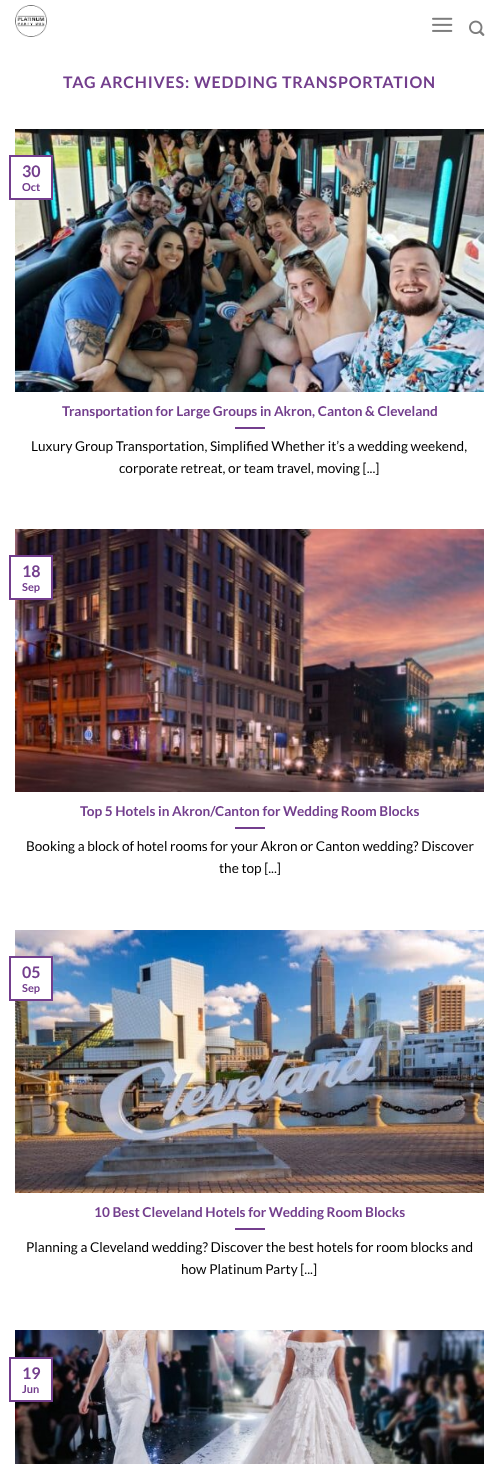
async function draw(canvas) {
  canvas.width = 499
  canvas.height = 1464
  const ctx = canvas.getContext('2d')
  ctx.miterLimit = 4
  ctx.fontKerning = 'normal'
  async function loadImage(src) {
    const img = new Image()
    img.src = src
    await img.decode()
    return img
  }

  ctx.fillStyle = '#fff'
  ctx.fillRect(0, 0, 499, 1464)
  ctx.drawImage(await loadImage('image0.png'), 15, 5, 32, 32)
  ctx.drawImage(await loadImage('image1.png'), 432, 17, 21, 15)
  ctx.drawImage(await loadImage('image2.png'), 469, 20, 16, 16)
  ctx.letterSpacing = '0.8px'
  ctx.font = 'bold 16px Lato'
  ctx.fillStyle = '#733e8d'
  ctx.fillText('TAG ARCHIVES: WEDDING TRANSPORTATION', 63, 88)
  ctx.drawImage(await loadImage('image3.png'), 15, 129, 469, 263)
  ctx.fillStyle = '#fff'
  ctx.fillRect(15, 157, 36, 41)
  ctx.strokeStyle = '#733e8d'
  ctx.lineWidth = 2
  ctx.strokeRect(10, 156, 42, 43)
  ctx.letterSpacing = '0px'
  ctx.fillStyle = '#733e8d'
  ctx.fillText('30', 22, 177)
  ctx.font = 'bold 11px Lato'
  ctx.fillText('Oct', 22, 191)
  ctx.font = 'bold 13.6px Lato'
  ctx.fillText('Transportation for Large Groups in Akron, Canton & Cleveland', 62, 416)
  ctx.fillRect(235, 427, 30, 2)
  ctx.font = '13.6px Lato'
  ctx.fillStyle = '#000'
  ctx.fillText('Luxury Group Transportation, Simplified Whether it’s a wedding weekend,', 31, 451)
  ctx.fillText('corporate retreat, or team travel, moving [...]', 119, 473)
  ctx.drawImage(await loadImage('image4.png'), 15, 529, 469, 263)
  ctx.fillStyle = '#fff'
  ctx.fillRect(15, 557, 36, 41)
  ctx.strokeRect(10, 556, 42, 43)
  ctx.font = 'bold 16px Lato'
  ctx.fillStyle = '#733e8d'
  ctx.fillText('18', 22, 577)
  ctx.font = 'bold 11px Lato'
  ctx.fillText('Sep', 22, 591)
  ctx.font = 'bold 13.6px Lato'
  ctx.fillText('Top 5 Hotels in Akron/Canton for Wedding Room Blocks', 80, 816)
  ctx.fillRect(235, 827, 30, 2)
  ctx.font = '13.6px Lato'
  ctx.fillStyle = '#000'
  ctx.fillText('Booking a block of hotel rooms for your Akron or Canton wedding? Discover', 26, 851)
  ctx.fillText('the top [...]', 219, 873)
  ctx.drawImage(await loadImage('image5.png'), 15, 930, 469, 263)
  ctx.fillStyle = '#fff'
  ctx.fillRect(15, 958, 36, 41)
  ctx.strokeRect(10, 957, 42, 43)
  ctx.font = 'bold 16px Lato'
  ctx.fillStyle = '#733e8d'
  ctx.fillText('05', 22, 978)
  ctx.font = 'bold 11px Lato'
  ctx.fillText('Sep', 22, 992)
  ctx.font = 'bold 13.6px Lato'
  ctx.fillText('10 Best Cleveland Hotels for Wedding Room Blocks', 94, 1217)
  ctx.fillRect(235, 1228, 30, 2)
  ctx.font = '13.6px Lato'
  ctx.fillStyle = '#000'
  ctx.fillText('Planning a Cleveland wedding? Discover the best hotels for room blocks and', 26, 1252)
  ctx.fillText('how Platinum Party [...]', 181, 1274)
  ctx.drawImage(await loadImage('image6.png'), 15, 1330, 469, 134)
  ctx.fillStyle = '#fff'
  ctx.fillRect(15, 1359, 36, 41)
  ctx.strokeRect(10, 1358, 42, 43)
  ctx.font = 'bold 16px Lato'
  ctx.fillStyle = '#733e8d'
  ctx.fillText('19', 22, 1379)
  ctx.font = 'bold 11px Lato'
  ctx.fillText('Jun', 22, 1393)
}

draw(document.querySelector('canvas'))
